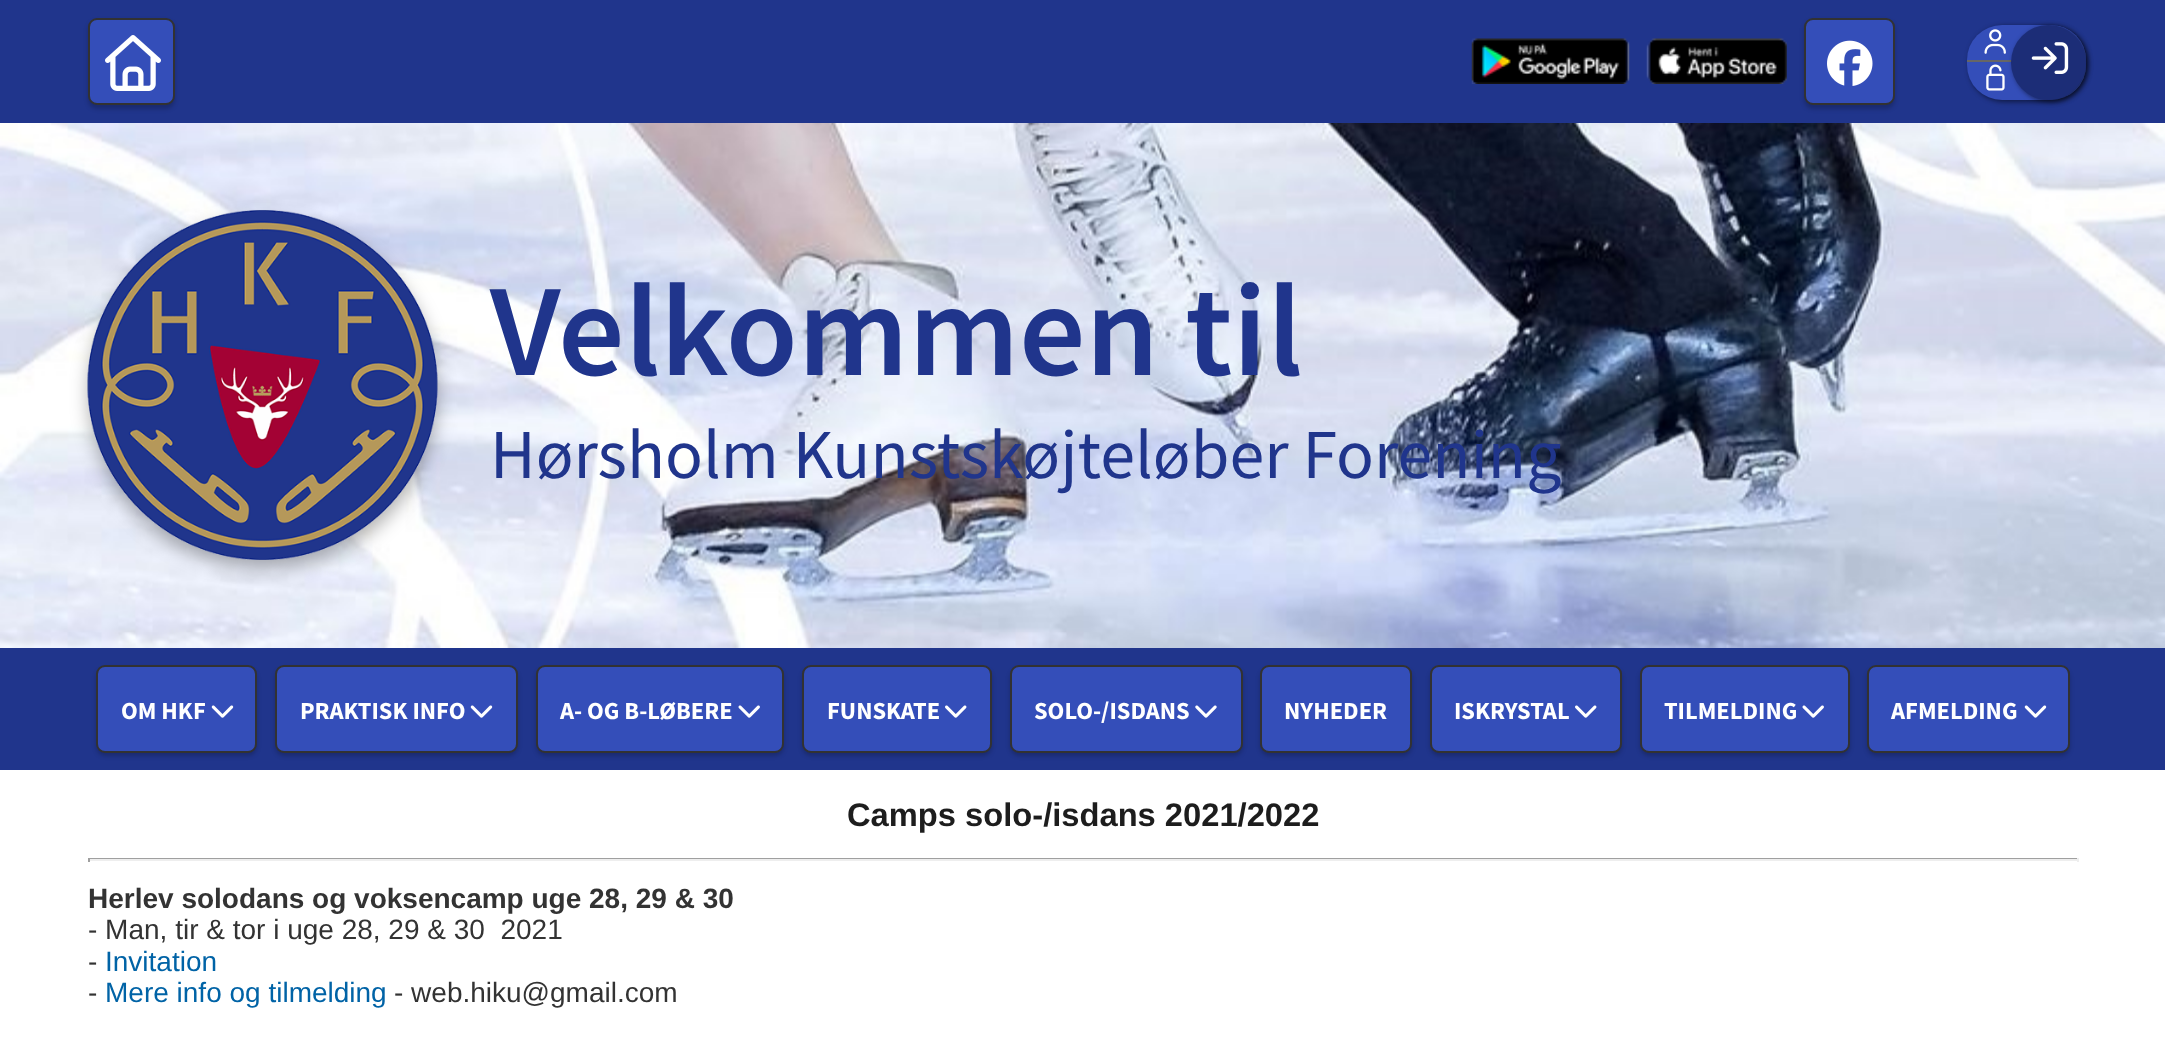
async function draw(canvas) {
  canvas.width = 2165
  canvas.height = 1056
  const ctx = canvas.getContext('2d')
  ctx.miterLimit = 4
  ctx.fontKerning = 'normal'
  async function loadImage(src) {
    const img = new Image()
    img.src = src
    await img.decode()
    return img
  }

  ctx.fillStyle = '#fff'
  ctx.fillRect(0, 0, 2165, 1056)
  ctx.fillStyle = '#20358c'
  ctx.fillRect(0, 0, 2165, 123)
  ctx.fillStyle = '#00000033'
  ctx.filter = 'blur(2px)'
  ctx.beginPath()
  ctx.roundRect(88, 21, 87, 88, 9)
  ctx.fill()
  ctx.filter = 'none'
  ctx.fillStyle = '#344eb9'
  ctx.beginPath()
  ctx.roundRect(89, 19, 85, 85, 8)
  ctx.fill()
  ctx.strokeStyle = '#323232'
  ctx.lineWidth = 2
  ctx.stroke()
  ctx.drawImage(await loadImage('image0.png'), 105, 35, 56, 56)
  ctx.drawImage(await loadImage('image1.png'), 1471, 38, 159, 46)
  ctx.drawImage(await loadImage('image2.png'), 1646, 38, 141, 46)
  ctx.fillStyle = '#00000033'
  ctx.filter = 'blur(2px)'
  ctx.beginPath()
  ctx.roundRect(1804, 21, 91, 88, 9)
  ctx.fill()
  ctx.filter = 'none'
  ctx.fillStyle = '#344eb9'
  ctx.beginPath()
  ctx.roundRect(1805, 19, 89, 85, 8)
  ctx.fill()
  ctx.stroke()
  ctx.drawImage(await loadImage('image3.png'), 1827, 40, 46, 46)
  ctx.drawImage(await loadImage('image4.png'), 0, 123, 2165, 525)
  ctx.fillStyle = '#0000004d'
  ctx.filter = 'blur(9px)'
  ctx.beginPath()
  ctx.roundRect(88, 219, 350, 350, 175)
  ctx.fill()
  ctx.filter = 'none'
  ctx.drawImage(await loadImage('image5.png'), 87, 210, 351, 350)
  ctx.font = '600 131.25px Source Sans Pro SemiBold'
  ctx.fillStyle = '#20358c'
  ctx.fillText('Velkommen til', 490, 375)
  ctx.font = '70px Source Sans Pro'
  ctx.fillText('Hørsholm Kunstskøjteløber Forening', 490, 478)
  ctx.fillRect(0, 648, 2165, 122)
  ctx.fillStyle = '#00000080'
  ctx.filter = 'blur(2.5px)'
  ctx.beginPath()
  ctx.roundRect(1969, 26, 119, 76, 35)
  ctx.fill()
  ctx.filter = 'none'
  ctx.fillStyle = '#344eb9'
  ctx.beginPath()
  ctx.roundRect(1967, 25, 119, 75, 35)
  ctx.fill()
  ctx.fillStyle = '#666'
  ctx.fillRect(1967, 60, 45, 2)
  ctx.drawImage(await loadImage('image6.png'), 1984, 29, 22, 25)
  ctx.save()
  ctx.beginPath()
  ctx.roundRect(1967, 25, 119, 75, 35)
  ctx.clip()
  ctx.fillStyle = '#344eb9'
  ctx.fillRect(2027, 26, 59, 35)
  ctx.restore()
  ctx.drawImage(await loadImage('image7.png'), 1986, 64, 19, 27)
  ctx.save()
  ctx.beginPath()
  ctx.roundRect(1967, 25, 119, 75, 35)
  ctx.clip()
  ctx.fillStyle = '#344eb9'
  ctx.fillRect(2027, 61, 59, 35)
  ctx.restore()
  ctx.fillStyle = '#00000080'
  ctx.filter = 'blur(2.5px)'
  ctx.beginPath()
  ctx.roundRect(2013, 26, 75, 76, 37.5)
  ctx.fill()
  ctx.filter = 'none'
  ctx.fillStyle = '#1c2d77'
  ctx.beginPath()
  ctx.arc(2048.5, 62.5, 37.5, 0, 2 * Math.PI)
  ctx.fill()
  ctx.drawImage(await loadImage('image8.png'), 2031, 42, 38, 32)
  ctx.fillStyle = '#00000033'
  ctx.filter = 'blur(2px)'
  ctx.beginPath()
  ctx.roundRect(96, 669, 161, 87, 9)
  ctx.fill()
  ctx.filter = 'none'
  ctx.fillStyle = '#344eb9'
  ctx.beginPath()
  ctx.roundRect(97, 666, 159, 86, 8)
  ctx.fill()
  ctx.stroke()
  ctx.font = 'bold 24.5px Source Sans Pro'
  ctx.fillStyle = '#fff'
  ctx.fillText('OM HKF', 121, 719)
  ctx.drawImage(await loadImage('image9.png'), 211, 705, 23, 13)
  ctx.fillStyle = '#00000033'
  ctx.filter = 'blur(2px)'
  ctx.beginPath()
  ctx.roundRect(275, 669, 243, 87, 9)
  ctx.fill()
  ctx.filter = 'none'
  ctx.fillStyle = '#344eb9'
  ctx.beginPath()
  ctx.roundRect(276, 666, 241, 86, 8)
  ctx.fill()
  ctx.stroke()
  ctx.fillStyle = '#fff'
  ctx.fillText('PRAKTISK INFO', 300, 719)
  ctx.drawImage(await loadImage('image9.png'), 470, 705, 23, 13)
  ctx.fillStyle = '#00000033'
  ctx.filter = 'blur(2px)'
  ctx.beginPath()
  ctx.roundRect(536, 669, 248, 87, 9)
  ctx.fill()
  ctx.filter = 'none'
  ctx.fillStyle = '#344eb9'
  ctx.beginPath()
  ctx.roundRect(537, 666, 246, 86, 8)
  ctx.fill()
  ctx.stroke()
  ctx.fillStyle = '#fff'
  ctx.fillText('A- OG B-LØBERE', 560, 719)
  ctx.drawImage(await loadImage('image10.png'), 738, 705, 22, 13)
  ctx.fillStyle = '#00000033'
  ctx.filter = 'blur(2px)'
  ctx.beginPath()
  ctx.roundRect(802, 669, 190, 87, 9)
  ctx.fill()
  ctx.filter = 'none'
  ctx.fillStyle = '#344eb9'
  ctx.beginPath()
  ctx.roundRect(803, 666, 188, 86, 8)
  ctx.fill()
  ctx.stroke()
  ctx.fillStyle = '#fff'
  ctx.fillText('FUNSKATE', 827, 719)
  ctx.drawImage(await loadImage('image11.png'), 945, 705, 22, 13)
  ctx.fillStyle = '#00000033'
  ctx.filter = 'blur(2px)'
  ctx.beginPath()
  ctx.roundRect(1010, 669, 233, 87, 9)
  ctx.fill()
  ctx.filter = 'none'
  ctx.fillStyle = '#344eb9'
  ctx.beginPath()
  ctx.roundRect(1011, 666, 231, 86, 8)
  ctx.fill()
  ctx.stroke()
  ctx.fillStyle = '#fff'
  ctx.fillText('SOLO-/ISDANS', 1034, 719)
  ctx.drawImage(await loadImage('image12.png'), 1195, 705, 22, 13)
  ctx.fillStyle = '#00000033'
  ctx.filter = 'blur(2px)'
  ctx.beginPath()
  ctx.roundRect(1260, 669, 152, 87, 9)
  ctx.fill()
  ctx.filter = 'none'
  ctx.fillStyle = '#344eb9'
  ctx.beginPath()
  ctx.roundRect(1261, 666, 150, 86, 8)
  ctx.fill()
  ctx.stroke()
  ctx.fillStyle = '#fff'
  ctx.fillText('NYHEDER', 1284, 719)
  ctx.fillStyle = '#00000033'
  ctx.filter = 'blur(2px)'
  ctx.beginPath()
  ctx.roundRect(1430, 669, 192, 87, 9)
  ctx.fill()
  ctx.filter = 'none'
  ctx.fillStyle = '#344eb9'
  ctx.beginPath()
  ctx.roundRect(1431, 666, 190, 86, 8)
  ctx.fill()
  ctx.stroke()
  ctx.fillStyle = '#fff'
  ctx.fillText('ISKRYSTAL', 1454, 719)
  ctx.drawImage(await loadImage('image11.png'), 1575, 705, 22, 13)
  ctx.fillStyle = '#00000033'
  ctx.filter = 'blur(2px)'
  ctx.beginPath()
  ctx.roundRect(1640, 669, 210, 87, 9)
  ctx.fill()
  ctx.filter = 'none'
  ctx.fillStyle = '#344eb9'
  ctx.beginPath()
  ctx.roundRect(1641, 666, 208, 86, 8)
  ctx.fill()
  ctx.stroke()
  ctx.fillStyle = '#fff'
  ctx.fillText('TILMELDING', 1664, 719)
  ctx.drawImage(await loadImage('image10.png'), 1802, 705, 22, 13)
  ctx.fillStyle = '#00000033'
  ctx.filter = 'blur(2px)'
  ctx.beginPath()
  ctx.roundRect(1867, 669, 203, 87, 9)
  ctx.fill()
  ctx.filter = 'none'
  ctx.fillStyle = '#344eb9'
  ctx.beginPath()
  ctx.roundRect(1868, 666, 201, 86, 8)
  ctx.fill()
  ctx.stroke()
  ctx.fillStyle = '#fff'
  ctx.fillText('AFMELDING', 1891, 719)
  ctx.drawImage(await loadImage('image9.png'), 2024, 705, 23, 13)
  ctx.font = 'bold 32.7px Liberation Sans'
  ctx.fillStyle = '#1d1d1d'
  ctx.fillText('Camps solo-/isdans 2021/2022', 847, 826)
  ctx.fillStyle = '#9f9f9f'
  ctx.fillRect(88, 858, 1991, 1)
  ctx.fillStyle = '#eee'
  ctx.fillRect(2077, 858, 2, 4)
  ctx.fillRect(88, 859, 1991, 2)
  ctx.fillStyle = '#9f9f9f'
  ctx.fillRect(88, 858, 2, 4)
  ctx.font = 'bold 28px Liberation Sans'
  ctx.fillStyle = '#333'
  ctx.fillText('Herlev solodans og voksencamp uge 28, 29 & 30', 88, 908)
  ctx.font = '28px Liberation Sans'
  ctx.fillText('- Man, tir & tor i uge 28, 29 & 30  2021', 88, 939)
  ctx.fillText('-', 88, 971)
  ctx.fillStyle = '#0063a6'
  ctx.fillText('Invitation', 105, 971)
  ctx.fillStyle = '#333'
  ctx.fillText('-', 88, 1002)
  ctx.fillStyle = '#0063a6'
  ctx.fillText('Mere info og tilmelding', 105, 1002)
  ctx.fillStyle = '#333'
  ctx.fillText('- web.hiku@gmail.com', 394, 1002)
}

draw(document.querySelector('canvas'))
